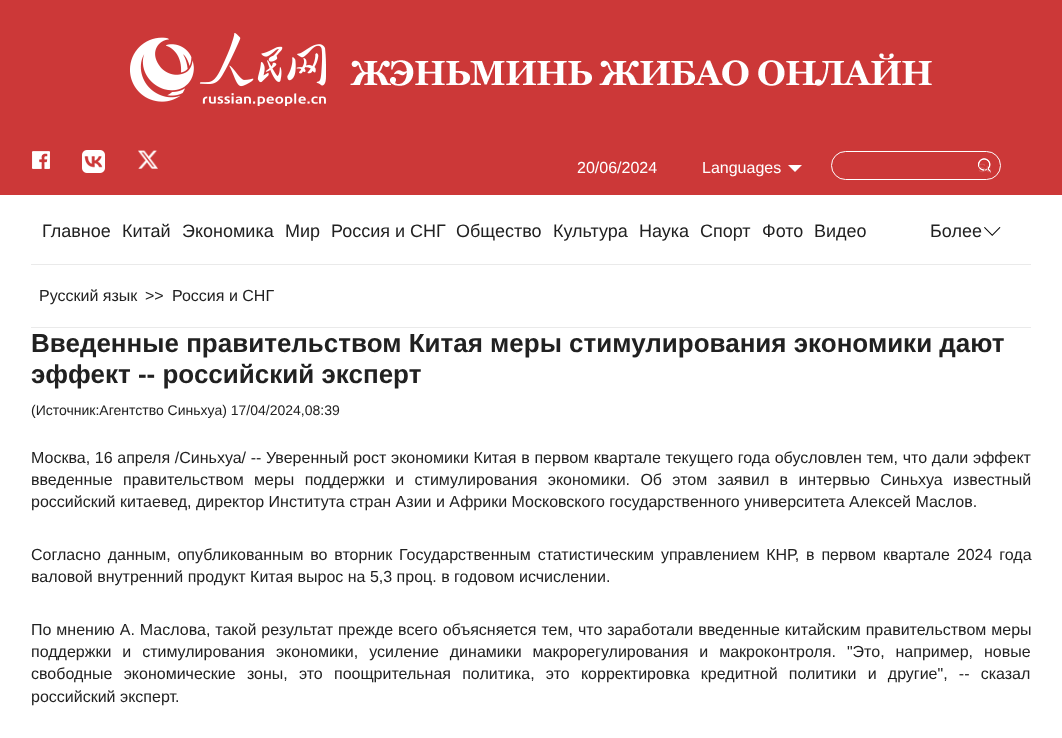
async function draw(canvas) {
  canvas.width = 1062
  canvas.height = 738
  const ctx = canvas.getContext('2d')
  ctx.miterLimit = 4
  ctx.fontKerning = 'normal'
  async function loadImage(src) {
    const img = new Image()
    img.src = src
    await img.decode()
    return img
  }

  ctx.fillStyle = '#fff'
  ctx.fillRect(0, 0, 1062, 738)
  ctx.fillStyle = '#cc3838'
  ctx.fillRect(0, 0, 1062, 195)
  ctx.drawImage(await loadImage('image0.png'), 130, 33, 196, 73)
  ctx.drawImage(await loadImage('image1.png'), 350, 53, 582, 33)
  ctx.drawImage(await loadImage('image2.png'), 32, 151, 18, 18)
  ctx.drawImage(await loadImage('image3.png'), 82, 150, 23, 23)
  ctx.drawImage(await loadImage('image4.png'), 138, 150, 20, 19)
  ctx.font = '16px Liberation Sans'
  ctx.fillStyle = '#fff'
  ctx.fillText('20/06/2024', 577, 173)
  ctx.fillText('Languages', 702, 173)
  ctx.drawImage(await loadImage('image5.png'), 788, 165, 14, 7)
  ctx.beginPath()
  ctx.roundRect(831.5, 151.5, 169, 28, 14)
  ctx.strokeStyle = '#fff'
  ctx.stroke()
  ctx.drawImage(await loadImage('image6.png'), 978, 158, 13, 15)
  ctx.save()
  ctx.beginPath()
  ctx.rect(978, 158, 13, 15)
  ctx.clip()
  ctx.font = '12px Liberation Sans'
  ctx.fillStyle = '#d55d5d'
  ctx.fillText('Su', 978, 172)
  ctx.restore()
  ctx.fillStyle = '#eaeaea'
  ctx.fillRect(31, 264, 1000, 1)
  ctx.font = '18px Liberation Sans'
  ctx.fillStyle = '#212121'
  ctx.fillText('Главное', 42, 237)
  ctx.fillText('Китай', 122, 237)
  ctx.fillText('Экономика', 182, 237)
  ctx.fillText('Мир', 285, 237)
  ctx.fillText('Россия и СНГ', 331, 237)
  ctx.fillText('Общество', 456, 237)
  ctx.fillText('Культура', 553, 237)
  ctx.fillText('Наука', 639, 237)
  ctx.fillText('Cпорт', 700, 237)
  ctx.fillText('Фото', 762, 237)
  ctx.fillText('Видео', 814, 237)
  ctx.fillText('Более', 930, 237)
  ctx.drawImage(await loadImage('image7.png'), 984, 227, 17, 9)
  ctx.fillStyle = '#eaeaea'
  ctx.fillRect(31, 327, 1000, 1)
  ctx.font = '16px Liberation Sans'
  ctx.fillStyle = '#212121'
  ctx.fillText('Русский язык', 39, 301)
  ctx.fillText('>>', 145, 301)
  ctx.fillText('Россия и СНГ', 172, 301)
  ctx.font = 'bold 26px Liberation Sans'
  ctx.fillText('Введенные правительством Китая меры стимулирования экономики дают', 31, 352)
  ctx.fillText('эффект -- российский эксперт', 31, 383)
  ctx.font = '14px Liberation Sans'
  ctx.fillText('(Источник:Агентство Синьхуа) 17/04/2024,08:39', 31, 415)
  ctx.wordSpacing = '0.25px'
  ctx.font = '16px Liberation Sans'
  ctx.fillText('Москва, 16 апреля /Синьхуа/ -- Уверенный рост экономики Китая в первом квартале текущего года обусловлен тем, что дали эффект', 31, 463)
  ctx.wordSpacing = '5.9px'
  ctx.fillText('введенные правительством меры поддержки и стимулирования экономики. Об этом заявил в интервью Синьхуа известный', 31, 485)
  ctx.wordSpacing = '0px'
  ctx.fillText('российский китаевед, директор Института стран Азии и Африки Московского государственного университета Алексей Маслов.', 31, 507)
  ctx.wordSpacing = '2.4px'
  ctx.fillText('Согласно данным, опубликованным во вторник Государственным статистическим управлением КНР, в первом квартале 2024 года', 31, 560)
  ctx.wordSpacing = '0px'
  ctx.fillText('валовой внутренний продукт Китая вырос на 5,3 проц. в годовом исчислении.', 31, 582)
  ctx.wordSpacing = '0.5px'
  ctx.fillText('По мнению А. Маслова, такой результат прежде всего объясняется тем, что заработали введенные китайским правительством меры', 31, 635)
  ctx.wordSpacing = '6.5px'
  ctx.fillText('поддержки и стимулирования экономики, усиление динамики макрорегулирования и макроконтроля. "Это, например, новые', 31, 657)
  ctx.wordSpacing = '6.75px'
  ctx.fillText('свободные экономические зоны, это поощрительная политика, это корректировка кредитной политики и другие", -- сказал', 31, 679)
  ctx.wordSpacing = '0px'
  ctx.fillText('российский эксперт.', 31, 702)
}

draw(document.querySelector('canvas'))
